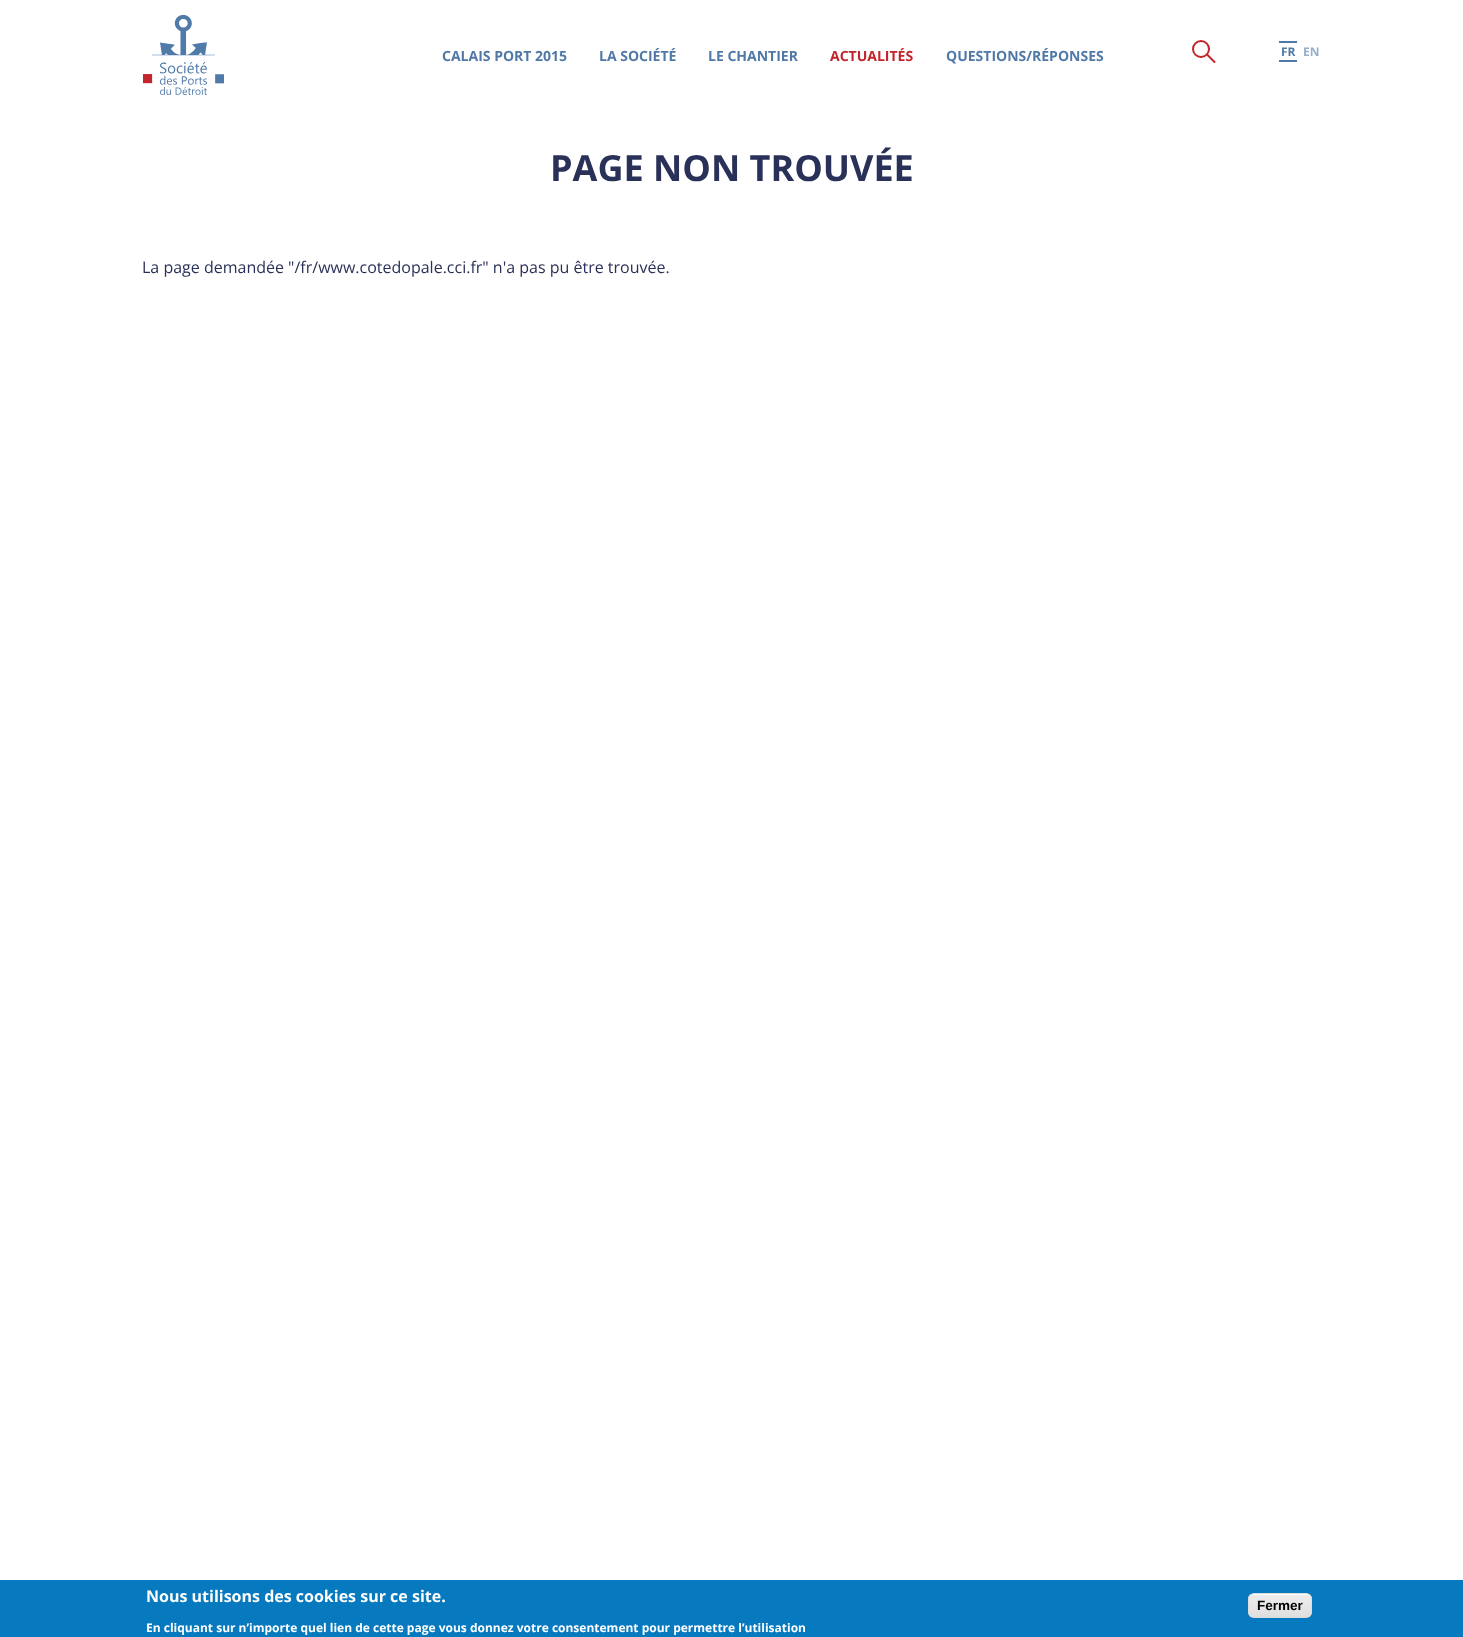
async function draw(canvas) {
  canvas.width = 1463
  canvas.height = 1637
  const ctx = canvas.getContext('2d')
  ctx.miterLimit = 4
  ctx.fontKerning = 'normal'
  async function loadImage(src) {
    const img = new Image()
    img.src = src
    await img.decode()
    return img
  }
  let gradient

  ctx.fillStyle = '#fff'
  ctx.fillRect(0, 0, 1463, 1637)
  ctx.drawImage(await loadImage('image0.png'), 143, 15, 81, 80)
  ctx.font = 'bold 14px Open Sans'
  ctx.fillStyle = '#5079a7'
  ctx.fillText('CALAIS PORT 2015', 442, 61)
  ctx.fillText('LA SOCIÉTÉ', 599, 61)
  ctx.fillText('LE CHANTIER', 708, 61)
  ctx.fillStyle = '#c2252b'
  ctx.fillText('ACTUALITÉS', 830, 61)
  ctx.fillStyle = '#5079a7'
  ctx.fillText('QUESTIONS/RÉPONSES', 946, 61)
  ctx.beginPath()
  ctx.arc(1201, 49, 8, 0, 2 * Math.PI)
  ctx.strokeStyle = '#c2272d'
  ctx.lineWidth = 2
  ctx.stroke()
  ctx.beginPath()
  ctx.moveTo(1207, 54.5)
  ctx.lineTo(1214.5, 62)
  ctx.lineCap = 'round'
  ctx.stroke()
  ctx.font = 'bold 12px Open Sans'
  ctx.fillText('FR', 1281, 56)
  ctx.fillRect(1279, 41, 18, 2)
  ctx.fillRect(1279, 60, 18, 2)
  ctx.fillStyle = '#96afca'
  ctx.fillText('EN', 1303, 56)
  ctx.font = 'bold 36px Open Sans'
  ctx.fillStyle = '#2a3158'
  ctx.fillText('PAGE NON TROUVÉE', 550, 181)
  ctx.font = '16px Open Sans'
  ctx.fillText('La page demandée "/fr/www.cotedopale.cci.fr" n\'a pas pu être trouvée.', 142, 273)
  ctx.fillStyle = '#0779bf'
  ctx.fillRect(0, 1580, 1463, 57)
  ctx.font = 'bold 16px Open Sans'
  ctx.fillStyle = '#fff'
  ctx.fillText('Nous utilisons des cookies sur ce site.', 146, 1602)
  ctx.font = 'bold 12px Open Sans'
  ctx.fillText('En cliquant sur n’importe quel lien de cette page vous donnez votre consentement pour permettre l’utilisation', 146, 1632)
  ctx.save()
  ctx.beginPath()
  ctx.roundRect(1248, 1593, 64, 25, 6)
  ctx.clip()
  gradient = ctx.createLinearGradient(1280, 1594, 1280, 1617)
  gradient.addColorStop(0.05, '#ededed')
  gradient.addColorStop(1, '#dfdfdf')
  ctx.fillStyle = gradient
  ctx.fillRect(1248, 1594, 64, 23)
  ctx.restore()
  ctx.beginPath()
  ctx.moveTo(1254, 1595)
  ctx.lineTo(1306, 1595)
  ctx.bezierCurveTo(1309, 1595, 1311, 1597, 1311, 1600)
  ctx.bezierCurveTo(1311, 1592, 1303, 1594, 1297, 1594)
  ctx.lineTo(1263, 1594)
  ctx.bezierCurveTo(1257, 1594, 1249, 1592, 1249, 1600)
  ctx.bezierCurveTo(1249, 1597, 1251, 1595, 1254, 1595)
  ctx.closePath()
  ctx.fill()
  ctx.beginPath()
  ctx.roundRect(1248.5, 1593.5, 63, 24, 5.5)
  ctx.strokeStyle = '#dcdcdc'
  ctx.lineWidth = 1
  ctx.stroke()
  ctx.font = 'bold 13.5px Liberation Sans'
  ctx.fillStyle = '#000'
  ctx.fillText('Fermer', 1257, 1610)
}

draw(document.querySelector('canvas'))
